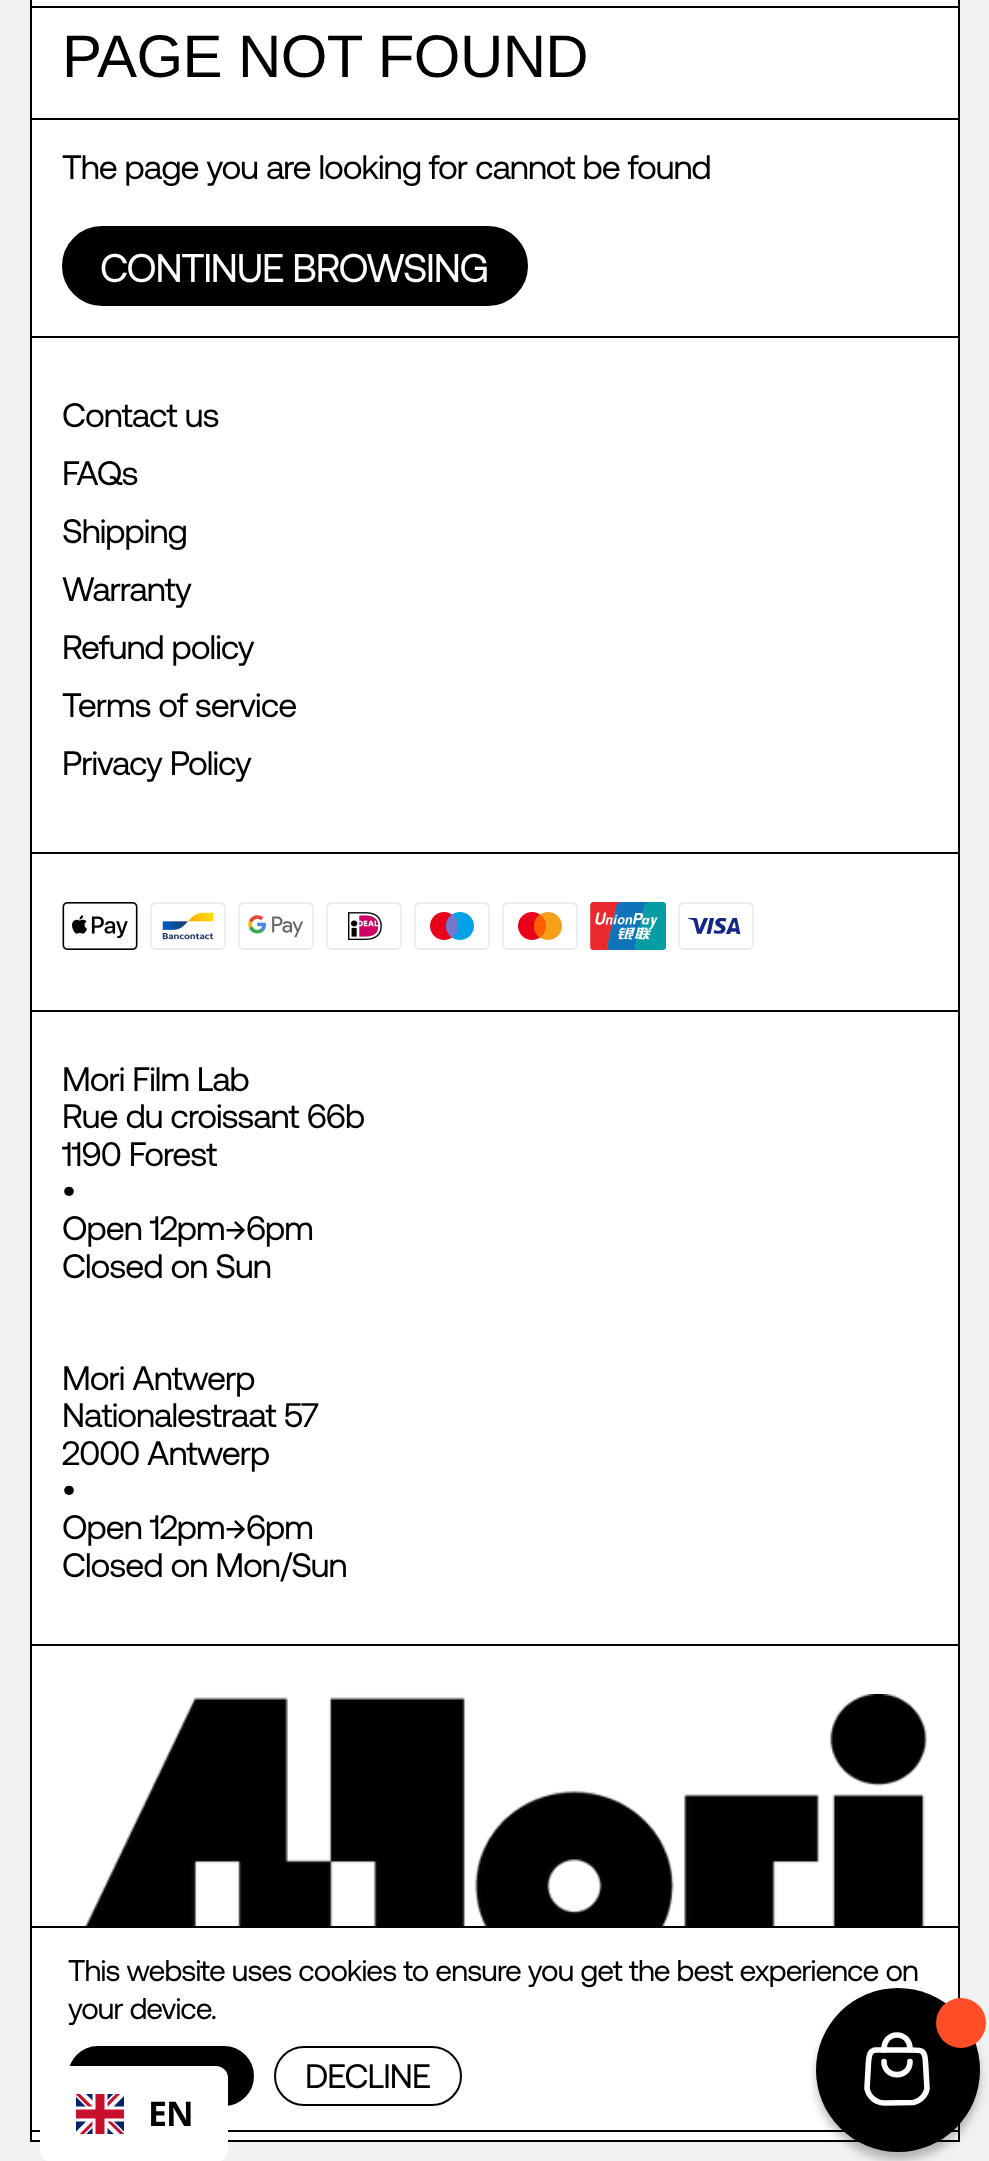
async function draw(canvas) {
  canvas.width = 989
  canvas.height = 2161
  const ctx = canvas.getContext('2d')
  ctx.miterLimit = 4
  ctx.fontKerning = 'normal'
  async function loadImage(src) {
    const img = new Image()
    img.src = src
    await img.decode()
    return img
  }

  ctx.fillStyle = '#f1f1f1'
  ctx.fillRect(0, 0, 989, 2161)
  ctx.fillStyle = '#fff'
  ctx.beginPath()
  ctx.rect(31, -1, 928, 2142)
  ctx.fill()
  ctx.strokeStyle = '#000'
  ctx.lineWidth = 2
  ctx.stroke()
  ctx.fillStyle = '#000'
  ctx.fillRect(32, 6, 926, 2)
  ctx.letterSpacing = '-0.6px'
  ctx.font = '60px Liberation Sans'
  ctx.fillText('PAGE NOT FOUND', 62, 77)
  ctx.fillRect(32, 118, 926, 2)
  ctx.letterSpacing = '-1px'
  ctx.font = '34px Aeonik'
  ctx.fillText('The page you are looking for cannot be found', 62, 179)
  ctx.beginPath()
  ctx.roundRect(63, 227, 464, 78, 39)
  ctx.fill()
  ctx.stroke()
  ctx.letterSpacing = '-1.25px'
  ctx.font = '40px Aeonik'
  ctx.fillStyle = '#fff'
  ctx.fillText('CONTINUE BROWSING', 100, 282)
  ctx.fillStyle = '#000'
  ctx.fillRect(32, 336, 926, 2)
  ctx.letterSpacing = '-1px'
  ctx.font = '34px Aeonik'
  ctx.fillText('Contact us', 62, 427)
  ctx.fillText('FAQs', 62, 485)
  ctx.fillText('Shipping', 62, 543)
  ctx.fillText('Warranty', 62, 601)
  ctx.fillText('Refund policy', 62, 659)
  ctx.fillText('Terms of service', 62, 717)
  ctx.fillText('Privacy Policy', 62, 775)
  ctx.fillRect(32, 852, 928, 2)
  ctx.drawImage(await loadImage('image0.png'), 62, 902, 76, 48)
  ctx.drawImage(await loadImage('image1.png'), 150, 902, 76, 48)
  ctx.drawImage(await loadImage('image2.png'), 238, 902, 76, 48)
  ctx.drawImage(await loadImage('image3.png'), 326, 902, 76, 48)
  ctx.drawImage(await loadImage('image4.png'), 414, 902, 76, 48)
  ctx.drawImage(await loadImage('image5.png'), 502, 902, 76, 48)
  ctx.drawImage(await loadImage('image6.png'), 590, 902, 76, 48)
  ctx.drawImage(await loadImage('image7.png'), 678, 902, 76, 48)
  ctx.fillRect(32, 1010, 928, 2)
  ctx.fillText('Mori Film Lab', 62, 1091)
  ctx.fillText('Rue du croissant 66b', 62, 1128)
  ctx.fillText('1190 Forest', 62, 1166)
  ctx.fillText('•', 62, 1203)
  ctx.fillText('Open 12pm→6pm', 62, 1240)
  ctx.fillText('Closed on Sun', 62, 1278)
  ctx.fillText('Mori Antwerp', 62, 1390)
  ctx.fillText('Nationalestraat 57', 62, 1427)
  ctx.fillText('2000 Antwerp', 62, 1465)
  ctx.fillText('•', 62, 1502)
  ctx.fillText('Open 12pm→6pm', 62, 1539)
  ctx.fillText('Closed on Mon/Sun', 62, 1577)
  ctx.fillRect(32, 1644, 928, 2)
  ctx.drawImage(await loadImage('image8.png'), 85, 1694, 842, 232)
  ctx.strokeRect(31, 1927, 928, 204)
  ctx.letterSpacing = '-0.9px'
  ctx.font = '30px Aeonik'
  ctx.fillText('This website uses cookies to ensure you get the best experience on', 68, 1981)
  ctx.fillText('your device.', 68, 2019)
  ctx.beginPath()
  ctx.roundRect(69, 2047, 184, 58, 29)
  ctx.fill()
  ctx.stroke()
  ctx.beginPath()
  ctx.roundRect(275, 2047, 186, 58, 29)
  ctx.stroke()
  ctx.letterSpacing = '-1px'
  ctx.font = '34px Aeonik'
  ctx.fillText('DECLINE', 305, 2088)
  ctx.fillStyle = '#fff'
  ctx.beginPath()
  ctx.roundRect(40, 2066, 188, 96, 12)
  ctx.fill()
  ctx.drawImage(await loadImage('image9.png'), 76, 2094, 48, 40)
  ctx.font = 'bold 34px Noto Sans'
  ctx.fillStyle = '#000'
  ctx.fillText('EN', 148, 2126)
  ctx.fillStyle = '#00000040'
  ctx.filter = 'blur(4px)'
  ctx.beginPath()
  ctx.roundRect(816, 1996, 164, 164, 82)
  ctx.fill()
  ctx.filter = 'none'
  ctx.fillStyle = '#000'
  ctx.beginPath()
  ctx.arc(898, 2070, 82, 0, 2 * Math.PI)
  ctx.fill()
  ctx.fillStyle = '#ff4e27'
  ctx.beginPath()
  ctx.arc(961, 2023, 25, 0, 2 * Math.PI)
  ctx.fill()
  ctx.beginPath()
  ctx.moveTo(884, 2061.5)
  ctx.bezierCurveTo(884, 2079, 910, 2079, 910, 2061.5)
  ctx.moveTo(884, 2050)
  ctx.lineTo(884, 2048.5)
  ctx.bezierCurveTo(884, 2041, 889.5, 2035, 897, 2035)
  ctx.bezierCurveTo(904.5, 2035, 910, 2041, 910, 2048.5)
  ctx.lineTo(910, 2050)
  ctx.strokeStyle = '#fff'
  ctx.lineWidth = 5.6
  ctx.lineCap = 'round'
  ctx.lineJoin = 'round'
  ctx.stroke()
  ctx.beginPath()
  ctx.moveTo(876, 2050)
  ctx.bezierCurveTo(869.5, 2050, 869, 2056.5, 868.5, 2062)
  ctx.lineTo(867, 2088.5)
  ctx.bezierCurveTo(868.5, 2096.5, 875.5, 2102.5, 884, 2103)
  ctx.lineTo(913.5, 2102.5)
  ctx.bezierCurveTo(920.5, 2101, 926, 2095, 927, 2088.5)
  ctx.lineTo(925.5, 2062)
  ctx.bezierCurveTo(925, 2050, 922, 2050, 911, 2050)
  ctx.closePath()
  ctx.stroke()
}

draw(document.querySelector('canvas'))
